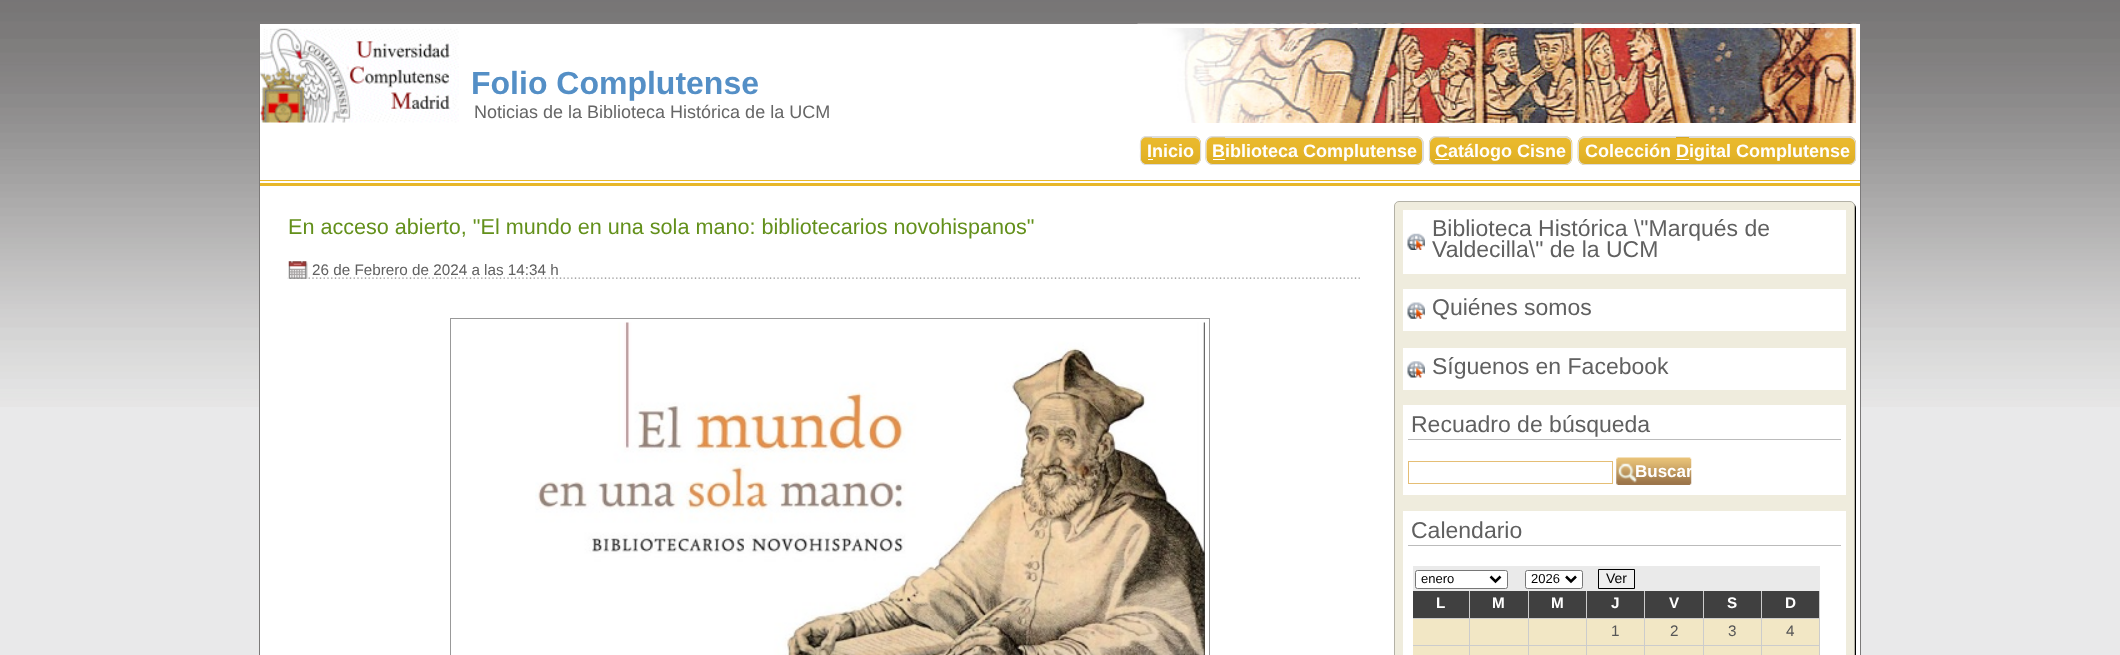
async function draw(canvas) {
  canvas.width = 2120
  canvas.height = 655
  const ctx = canvas.getContext('2d')
  ctx.miterLimit = 4
  ctx.fontKerning = 'normal'
  async function loadImage(src) {
    const img = new Image()
    img.src = src
    await img.decode()
    return img
  }

  ctx.fillStyle = '#e9e9ea'
  ctx.fillRect(0, 0, 2120, 655)
  ctx.drawImage(await loadImage('image0.png'), 0, 0, 2120, 407)
  ctx.strokeStyle = '#7c7a7a'
  ctx.strokeRect(259.5, 23.5, 1601, 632)
  ctx.fillStyle = '#fff'
  ctx.fillRect(260, 24, 200, 99)
  ctx.drawImage(await loadImage('image1.png'), 260, 28, 199, 95)
  ctx.fillRect(464, 28, 674, 95)
  ctx.drawImage(await loadImage('image2.png'), 1137, 23, 720, 100)
  ctx.strokeStyle = '#fff'
  ctx.lineWidth = 4
  ctx.strokeRect(462, 26, 1396, 102)
  ctx.font = 'bold 32px Liberation Sans'
  ctx.fillStyle = '#548fc6'
  ctx.fillText('Folio Complutense', 471, 94)
  ctx.font = '18px Liberation Sans'
  ctx.fillStyle = '#666'
  ctx.fillText('Noticias de la Biblioteca Histórica de la UCM', 474, 118)
  ctx.fillStyle = '#fff'
  ctx.fillRect(260, 123, 1600, 57)
  ctx.fillStyle = '#e7b72a'
  ctx.fillRect(260, 180, 1600, 1)
  ctx.drawImage(await loadImage('image3.png'), 1140, 136, 62, 29)
  ctx.drawImage(await loadImage('image4.png'), 1206, 136, 218, 29)
  ctx.drawImage(await loadImage('image5.png'), 1428, 136, 145, 29)
  ctx.drawImage(await loadImage('image6.png'), 1577, 136, 280, 29)
  ctx.fillStyle = '#ddd'
  ctx.beginPath()
  ctx.moveTo(1146, 136)
  ctx.lineTo(1152.5, 136)
  ctx.lineTo(1152.5, 165)
  ctx.lineTo(1145, 165)
  ctx.bezierCurveTo(1138.5, 163.5, 1140, 155.5, 1140, 150.5)
  ctx.bezierCurveTo(1140, 145.5, 1138.5, 136, 1146, 136)
  ctx.closePath()
  ctx.moveTo(1146, 137.5)
  ctx.lineTo(1152.5, 137.5)
  ctx.lineTo(1152.5, 164)
  ctx.lineTo(1146, 164)
  ctx.bezierCurveTo(1143.5, 164, 1141, 161.5, 1141, 159)
  ctx.lineTo(1141, 142.5)
  ctx.bezierCurveTo(1141, 139.5, 1143.5, 137.5, 1146, 137.5)
  ctx.closePath()
  ctx.fill('evenodd')
  ctx.beginPath()
  ctx.moveTo(1152, 136)
  ctx.lineTo(1194, 136)
  ctx.bezierCurveTo(1198, 136, 1201, 140, 1201, 144)
  ctx.lineTo(1201, 158)
  ctx.bezierCurveTo(1201, 162, 1198, 165, 1194, 165)
  ctx.lineTo(1152, 165)
  ctx.closePath()
  ctx.moveTo(1152, 138)
  ctx.lineTo(1194, 138)
  ctx.bezierCurveTo(1197, 138, 1200, 140, 1200, 144)
  ctx.lineTo(1200, 158)
  ctx.bezierCurveTo(1200, 161, 1197, 164, 1194, 164)
  ctx.lineTo(1152, 164)
  ctx.closePath()
  ctx.fill('evenodd')
  ctx.font = 'bold 18px Liberation Sans'
  ctx.fillStyle = '#fff'
  ctx.fillText('Inicio', 1147, 157)
  ctx.fillRect(1148, 159, 5, 1)
  ctx.fillStyle = '#ddd'
  ctx.beginPath()
  ctx.moveTo(1212.5, 136)
  ctx.lineTo(1225, 136)
  ctx.lineTo(1225, 165)
  ctx.lineTo(1212.5, 165)
  ctx.bezierCurveTo(1208.5, 165, 1205, 161.5, 1205, 157.5)
  ctx.lineTo(1205, 144)
  ctx.bezierCurveTo(1205, 139.5, 1208.5, 136, 1212.5, 136)
  ctx.closePath()
  ctx.moveTo(1212.5, 137.5)
  ctx.lineTo(1225, 137.5)
  ctx.lineTo(1225, 164)
  ctx.lineTo(1212.5, 164)
  ctx.bezierCurveTo(1209, 164, 1206, 161, 1206, 157.5)
  ctx.lineTo(1206, 144)
  ctx.bezierCurveTo(1206, 140.5, 1209, 137.5, 1212.5, 137.5)
  ctx.closePath()
  ctx.fill('evenodd')
  ctx.beginPath()
  ctx.moveTo(1225, 136)
  ctx.lineTo(1416, 136)
  ctx.bezierCurveTo(1420, 136, 1424, 140, 1424, 144)
  ctx.lineTo(1424, 158)
  ctx.bezierCurveTo(1424, 162, 1420, 165, 1416, 165)
  ctx.lineTo(1225, 165)
  ctx.closePath()
  ctx.moveTo(1225, 138)
  ctx.lineTo(1416, 138)
  ctx.bezierCurveTo(1420, 138, 1422, 140, 1422, 144)
  ctx.lineTo(1422, 158)
  ctx.bezierCurveTo(1422, 161, 1420, 164, 1416, 164)
  ctx.lineTo(1225, 164)
  ctx.closePath()
  ctx.fill('evenodd')
  ctx.fillStyle = '#fff'
  ctx.fillRect(1213, 159, 12, 1)
  ctx.fillText('Biblioteca Complutense', 1212, 157)
  ctx.fillStyle = '#ddd'
  ctx.beginPath()
  ctx.moveTo(1436, 136)
  ctx.lineTo(1449, 136)
  ctx.lineTo(1449, 165)
  ctx.lineTo(1436, 165)
  ctx.bezierCurveTo(1432, 165, 1429, 161.5, 1429, 157.5)
  ctx.lineTo(1429, 144)
  ctx.bezierCurveTo(1429, 139.5, 1432, 136, 1436, 136)
  ctx.closePath()
  ctx.moveTo(1436, 137.5)
  ctx.lineTo(1449, 137.5)
  ctx.lineTo(1449, 164)
  ctx.lineTo(1436, 164)
  ctx.bezierCurveTo(1433, 164, 1430, 161, 1430, 157.5)
  ctx.lineTo(1430, 144)
  ctx.bezierCurveTo(1430, 140.5, 1433, 137.5, 1436, 137.5)
  ctx.closePath()
  ctx.fill('evenodd')
  ctx.beginPath()
  ctx.moveTo(1449, 136)
  ctx.lineTo(1565, 136)
  ctx.bezierCurveTo(1569, 136, 1572, 140, 1572, 144)
  ctx.lineTo(1572, 158)
  ctx.bezierCurveTo(1572, 162, 1569, 165, 1565, 165)
  ctx.lineTo(1449, 165)
  ctx.closePath()
  ctx.moveTo(1449, 138)
  ctx.lineTo(1565, 138)
  ctx.bezierCurveTo(1568, 138, 1571, 140, 1571, 144)
  ctx.lineTo(1571, 158)
  ctx.bezierCurveTo(1571, 161, 1568, 164, 1565, 164)
  ctx.lineTo(1449, 164)
  ctx.closePath()
  ctx.fill('evenodd')
  ctx.fillStyle = '#fff'
  ctx.fillRect(1435, 159, 14, 1)
  ctx.fillText('Catálogo Cisne', 1435, 157)
  ctx.fillStyle = '#ddd'
  ctx.beginPath()
  ctx.moveTo(1585, 136)
  ctx.lineTo(1676, 136)
  ctx.lineTo(1676, 165)
  ctx.lineTo(1585, 165)
  ctx.bezierCurveTo(1581, 165, 1578, 162, 1578, 158)
  ctx.lineTo(1578, 144)
  ctx.bezierCurveTo(1578, 140, 1581, 136, 1585, 136)
  ctx.closePath()
  ctx.moveTo(1585, 138)
  ctx.lineTo(1676, 138)
  ctx.lineTo(1676, 164)
  ctx.lineTo(1585, 164)
  ctx.bezierCurveTo(1582, 164, 1579, 161, 1579, 158)
  ctx.lineTo(1579, 144)
  ctx.bezierCurveTo(1579, 140, 1582, 138, 1585, 138)
  ctx.closePath()
  ctx.fill('evenodd')
  ctx.beginPath()
  ctx.moveTo(1689, 136)
  ctx.lineTo(1849, 136)
  ctx.bezierCurveTo(1853, 136, 1856, 140, 1856, 144)
  ctx.lineTo(1856, 158)
  ctx.bezierCurveTo(1856, 162, 1853, 165, 1849, 165)
  ctx.lineTo(1689, 165)
  ctx.closePath()
  ctx.moveTo(1689, 138)
  ctx.lineTo(1849, 138)
  ctx.bezierCurveTo(1852, 138, 1855, 140, 1855, 144)
  ctx.lineTo(1855, 158)
  ctx.bezierCurveTo(1855, 161, 1852, 164, 1849, 164)
  ctx.lineTo(1689, 164)
  ctx.closePath()
  ctx.fill('evenodd')
  ctx.fillStyle = '#fff'
  ctx.fillText('Colección Digital Complutense', 1585, 157)
  ctx.fillStyle = '#ddd'
  ctx.fillRect(1676, 136, 13, 1)
  ctx.fillRect(1676, 164, 13, 1)
  ctx.fillStyle = '#fff'
  ctx.fillRect(1676, 159, 13, 1)
  ctx.fillRect(260, 181, 1600, 474)
  ctx.fillStyle = '#e7b72a'
  ctx.fillRect(260, 183, 1600, 3)
  ctx.font = '21.6px Liberation Sans'
  ctx.fillStyle = '#63901b'
  ctx.fillText('En acceso abierto, "El mundo en una sola mano: bibliotecarios novohispanos"', 288, 234)
  ctx.drawImage(await loadImage('image7.png'), 287, 277, 1073, 2)
  ctx.drawImage(await loadImage('image8.png'), 287, 261, 21, 18)
  ctx.font = '15.25px Liberation Sans'
  ctx.fillStyle = '#606060'
  ctx.fillText('26 de Febrero de 2024 a las 14:34 h', 312, 275)
  ctx.strokeStyle = '#999'
  ctx.lineWidth = 1
  ctx.strokeRect(450.5, 318.5, 759, 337)
  ctx.drawImage(await loadImage('image9.png'), 535, 322, 670, 333)
  ctx.fillStyle = '#000'
  ctx.filter = 'blur(0.5px)'
  ctx.beginPath()
  ctx.roundRect(1395, 203, 461, 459, 5)
  ctx.fill()
  ctx.filter = 'none'
  ctx.fillStyle = '#efecdd'
  ctx.beginPath()
  ctx.roundRect(1394.5, 201.5, 460, 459, 4.5)
  ctx.fill()
  ctx.strokeStyle = '#b3b1a6'
  ctx.stroke()
  ctx.fillStyle = '#fff'
  ctx.fillRect(1403, 210, 443, 64)
  ctx.drawImage(await loadImage('image10.png'), 1407, 233, 18, 17)
  ctx.font = '23px Liberation Sans'
  ctx.fillStyle = '#606060'
  ctx.fillText('Biblioteca Histórica \\"Marqués de', 1432, 236)
  ctx.fillText('Valdecilla\\" de la UCM', 1432, 257)
  ctx.fillStyle = '#fff'
  ctx.fillRect(1403, 289, 443, 42)
  ctx.drawImage(await loadImage('image11.png'), 1407, 302, 18, 17)
  ctx.fillStyle = '#606060'
  ctx.fillText('Quiénes somos', 1432, 315)
  ctx.fillStyle = '#fff'
  ctx.fillRect(1403, 348, 443, 42)
  ctx.drawImage(await loadImage('image12.png'), 1407, 361, 18, 17)
  ctx.fillStyle = '#606060'
  ctx.fillText('Síguenos en Facebook', 1432, 374)
  ctx.fillStyle = '#fff'
  ctx.fillRect(1403, 405, 443, 90)
  ctx.fillStyle = '#bbb'
  ctx.fillRect(1408, 439, 433, 1)
  ctx.fillStyle = '#606060'
  ctx.fillText('Recuadro de búsqueda', 1411, 432)
  ctx.strokeStyle = '#e5be75'
  ctx.strokeRect(1408.5, 461.5, 204, 22)
  ctx.drawImage(await loadImage('image13.png'), 1616, 457, 76, 28)
  ctx.font = 'bold 17px Liberation Sans'
  ctx.fillStyle = '#fff'
  ctx.fillText('Buscar', 1635, 477)
  ctx.fillRect(1403, 511, 443, 144)
  ctx.fillStyle = '#bbb'
  ctx.fillRect(1408, 545, 433, 1)
  ctx.font = '23px Liberation Sans'
  ctx.fillStyle = '#606060'
  ctx.fillText('Calendario', 1411, 538)
  ctx.fillStyle = '#eaeaea'
  ctx.fillRect(1413, 566, 407, 25)
  ctx.fillStyle = '#fff'
  ctx.beginPath()
  ctx.roundRect(1415.5, 570.5, 92, 18, 2)
  ctx.fill()
  ctx.strokeStyle = '#767676'
  ctx.stroke()
  ctx.beginPath()
  ctx.moveTo(1490.5, 576.5)
  ctx.lineTo(1495.5, 581.5)
  ctx.lineTo(1500.5, 576.5)
  ctx.strokeStyle = '#000'
  ctx.lineWidth = 2.5
  ctx.stroke()
  ctx.font = '13px Liberation Sans'
  ctx.fillStyle = '#000'
  ctx.fillText('enero', 1421, 583)
  ctx.fillStyle = '#fff'
  ctx.beginPath()
  ctx.roundRect(1525.5, 570.5, 57, 18, 2)
  ctx.fill()
  ctx.strokeStyle = '#767676'
  ctx.lineWidth = 1
  ctx.stroke()
  ctx.beginPath()
  ctx.moveTo(1566, 576.5)
  ctx.lineTo(1571, 581.5)
  ctx.lineTo(1576, 576.5)
  ctx.strokeStyle = '#000'
  ctx.lineWidth = 2.5
  ctx.stroke()
  ctx.fillStyle = '#000'
  ctx.fillText('2026', 1531, 583)
  ctx.fillStyle = '#efefef'
  ctx.beginPath()
  ctx.rect(1598.5, 569.5, 36, 19)
  ctx.fill()
  ctx.lineWidth = 1
  ctx.stroke()
  ctx.font = '14px Liberation Sans'
  ctx.fillStyle = '#000'
  ctx.fillText('Ver', 1606, 583)
  ctx.fillStyle = '#404040'
  ctx.fillRect(1413, 591, 56, 27)
  ctx.fillStyle = '#ccc'
  ctx.fillRect(1469, 591, 1, 64)
  ctx.fillRect(1413, 618, 57, 1)
  ctx.font = 'bold 15.25px Liberation Sans'
  ctx.fillStyle = '#fff'
  ctx.fillText('L', 1436, 608)
  ctx.fillStyle = '#404040'
  ctx.fillRect(1470, 591, 58, 27)
  ctx.fillStyle = '#ccc'
  ctx.fillRect(1528, 591, 1, 64)
  ctx.fillRect(1470, 618, 59, 1)
  ctx.fillStyle = '#fff'
  ctx.fillText('M', 1492, 608)
  ctx.fillStyle = '#404040'
  ctx.fillRect(1529, 591, 115, 27)
  ctx.fillStyle = '#ccc'
  ctx.fillRect(1586, 591, 1, 28)
  ctx.fillRect(1529, 618, 59, 1)
  ctx.fillStyle = '#fff'
  ctx.fillText('M', 1551, 608)
  ctx.fillStyle = '#ccc'
  ctx.fillRect(1644, 591, 1, 64)
  ctx.fillRect(1588, 618, 57, 1)
  ctx.fillStyle = '#fff'
  ctx.fillText('J', 1611, 608)
  ctx.fillStyle = '#404040'
  ctx.fillRect(1645, 591, 58, 27)
  ctx.fillStyle = '#ccc'
  ctx.fillRect(1703, 591, 1, 64)
  ctx.fillRect(1645, 618, 59, 1)
  ctx.fillStyle = '#fff'
  ctx.fillText('V', 1669, 608)
  ctx.fillStyle = '#404040'
  ctx.fillRect(1704, 591, 115, 27)
  ctx.fillStyle = '#ccc'
  ctx.fillRect(1761, 591, 1, 28)
  ctx.fillRect(1704, 618, 59, 1)
  ctx.fillStyle = '#fff'
  ctx.fillText('S', 1727, 608)
  ctx.fillStyle = '#ccc'
  ctx.fillRect(1819, 591, 1, 64)
  ctx.fillRect(1763, 618, 57, 1)
  ctx.fillStyle = '#fff'
  ctx.fillText('D', 1785, 608)
  ctx.fillStyle = '#f2e7c5'
  ctx.fillRect(1413, 619, 56, 26)
  ctx.fillStyle = '#ccc'
  ctx.fillRect(1413, 645, 116, 1)
  ctx.fillStyle = '#f2e7c5'
  ctx.fillRect(1470, 619, 58, 26)
  ctx.fillRect(1529, 619, 115, 26)
  ctx.fillStyle = '#ccc'
  ctx.fillRect(1586, 619, 1, 27)
  ctx.fillRect(1529, 645, 175, 1)
  ctx.font = '15.25px Liberation Sans'
  ctx.fillStyle = '#575757'
  ctx.fillText('1', 1611, 636)
  ctx.fillStyle = '#f2e7c5'
  ctx.fillRect(1645, 619, 58, 26)
  ctx.fillStyle = '#575757'
  ctx.fillText('2', 1670, 636)
  ctx.fillStyle = '#f2e7c5'
  ctx.fillRect(1704, 619, 115, 26)
  ctx.fillStyle = '#ccc'
  ctx.fillRect(1761, 619, 1, 27)
  ctx.fillRect(1704, 645, 116, 1)
  ctx.fillStyle = '#575757'
  ctx.fillText('3', 1728, 636)
  ctx.fillText('4', 1786, 636)
  ctx.fillStyle = '#f2e7c5'
  ctx.fillRect(1413, 646, 56, 9)
  ctx.fillRect(1470, 646, 58, 9)
  ctx.fillRect(1529, 646, 115, 9)
  ctx.fillStyle = '#ccc'
  ctx.fillRect(1586, 646, 1, 9)
  ctx.fillStyle = '#f2e7c5'
  ctx.fillRect(1645, 646, 58, 9)
  ctx.fillRect(1704, 646, 115, 9)
  ctx.fillStyle = '#ccc'
  ctx.fillRect(1761, 646, 1, 9)
}

draw(document.querySelector('canvas'))
